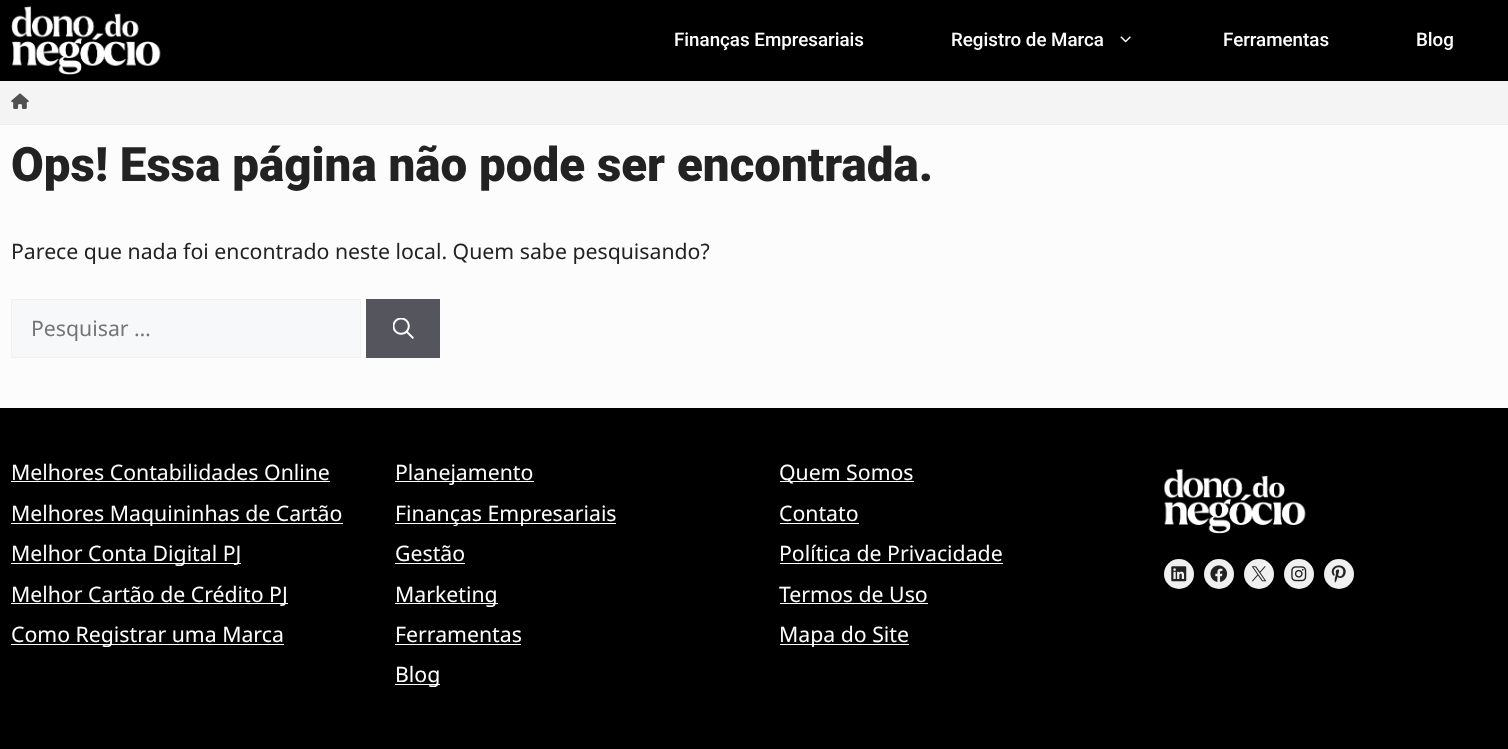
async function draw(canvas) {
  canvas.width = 1508
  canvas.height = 749
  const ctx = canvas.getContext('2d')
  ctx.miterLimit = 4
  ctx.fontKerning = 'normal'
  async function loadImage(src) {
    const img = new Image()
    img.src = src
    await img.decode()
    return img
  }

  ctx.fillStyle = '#fcfcfc'
  ctx.fillRect(0, 0, 1508, 749)
  ctx.fillStyle = '#000'
  ctx.fillRect(0, 0, 1508, 81)
  ctx.drawImage(await loadImage('image0.png'), 11, 6, 150, 69)
  ctx.font = '500 18.75px Roboto'
  ctx.fillStyle = '#fff'
  ctx.fillText('Finanças Empresariais', 674, 46)
  ctx.fillText('Registro de Marca', 951, 46)
  ctx.drawImage(await loadImage('image1.png'), 1120, 36, 11, 7)
  ctx.fillText('Ferramentas', 1223, 46)
  ctx.fillText('Blog', 1416, 46)
  ctx.fillStyle = '#f4f4f4'
  ctx.fillRect(0, 81, 1508, 43)
  ctx.fillStyle = '#eee'
  ctx.fillRect(0, 124, 1508, 1)
  ctx.drawImage(await loadImage('image2.png'), 11, 93, 18, 16)
  ctx.font = '900 47.5px Roboto'
  ctx.fillStyle = '#222'
  ctx.fillText('Ops! Essa página não pode ser encontrada.', 11, 181)
  ctx.font = '21.25px Noto Sans'
  ctx.fillText('Parece que nada foi encontrado neste local. Quem sabe pesquisando?', 11, 259)
  ctx.fillStyle = '#f7f8f9'
  ctx.beginPath()
  ctx.rect(11.5, 299.5, 349, 58)
  ctx.fill()
  ctx.strokeStyle = '#f0f0f0'
  ctx.stroke()
  ctx.fillStyle = '#757575'
  ctx.fillText('Pesquisar …', 31, 336)
  ctx.fillStyle = '#55555e'
  ctx.fillRect(366, 299, 74, 59)
  ctx.drawImage(await loadImage('image3.png'), 393, 318, 21, 21)
  ctx.fillStyle = '#000'
  ctx.fillRect(0, 408, 1508, 341)
  ctx.fillStyle = '#fff'
  ctx.fillText('Melhores Contabilidades Online', 11, 480)
  ctx.fillRect(11, 481, 319, 1)
  ctx.fillRect(11, 523, 332, 1)
  ctx.fillText('Melhores Maquininhas de Cartão', 11, 521)
  ctx.fillRect(11, 563, 230, 1)
  ctx.fillText('Melhor Conta Digital PJ', 11, 561)
  ctx.fillRect(11, 603, 277, 1)
  ctx.fillText('Melhor Cartão de Crédito PJ', 11, 602)
  ctx.fillRect(11, 644, 273, 1)
  ctx.fillText('Como Registrar uma Marca', 11, 642)
  ctx.fillRect(395, 481, 139, 1)
  ctx.fillText('Planejamento', 395, 480)
  ctx.fillRect(395, 523, 221, 1)
  ctx.fillText('Finanças Empresariais', 395, 521)
  ctx.fillText('Gestão', 395, 561)
  ctx.fillRect(395, 563, 70, 1)
  ctx.fillRect(395, 603, 103, 1)
  ctx.fillText('Marketing', 395, 602)
  ctx.fillText('Ferramentas', 395, 642)
  ctx.fillRect(395, 644, 126, 1)
  ctx.fillRect(395, 684, 45, 1)
  ctx.fillText('Blog', 395, 682)
  ctx.fillRect(780, 481, 134, 1)
  ctx.fillText('Quem Somos', 779, 480)
  ctx.fillText('Contato', 779, 521)
  ctx.fillRect(780, 523, 79, 1)
  ctx.fillText('Política de Privacidade', 779, 561)
  ctx.fillRect(780, 563, 223, 1)
  ctx.fillText('Termos de Uso', 779, 602)
  ctx.fillRect(780, 603, 148, 1)
  ctx.fillRect(780, 644, 129, 1)
  ctx.fillText('Mapa do Site', 779, 642)
  ctx.drawImage(await loadImage('image4.png'), 1164, 469, 142, 65)
  ctx.fillStyle = '#f0f0f0'
  ctx.beginPath()
  ctx.arc(1179, 574, 15, 0, 2 * Math.PI)
  ctx.fill()
  ctx.drawImage(await loadImage('image5.png'), 1171, 566, 16, 16)
  ctx.beginPath()
  ctx.arc(1219, 574, 15, 0, 2 * Math.PI)
  ctx.fill()
  ctx.drawImage(await loadImage('image6.png'), 1210, 565, 18, 17)
  ctx.beginPath()
  ctx.arc(1259, 574, 15, 0, 2 * Math.PI)
  ctx.fill()
  ctx.drawImage(await loadImage('image7.png'), 1251, 566, 16, 16)
  ctx.beginPath()
  ctx.arc(1299, 574, 15, 0, 2 * Math.PI)
  ctx.fill()
  ctx.drawImage(await loadImage('image8.png'), 1291, 566, 16, 16)
  ctx.beginPath()
  ctx.arc(1339, 574, 15, 0, 2 * Math.PI)
  ctx.fill()
  ctx.drawImage(await loadImage('image9.png'), 1331, 565, 15, 18)
}

draw(document.querySelector('canvas'))
